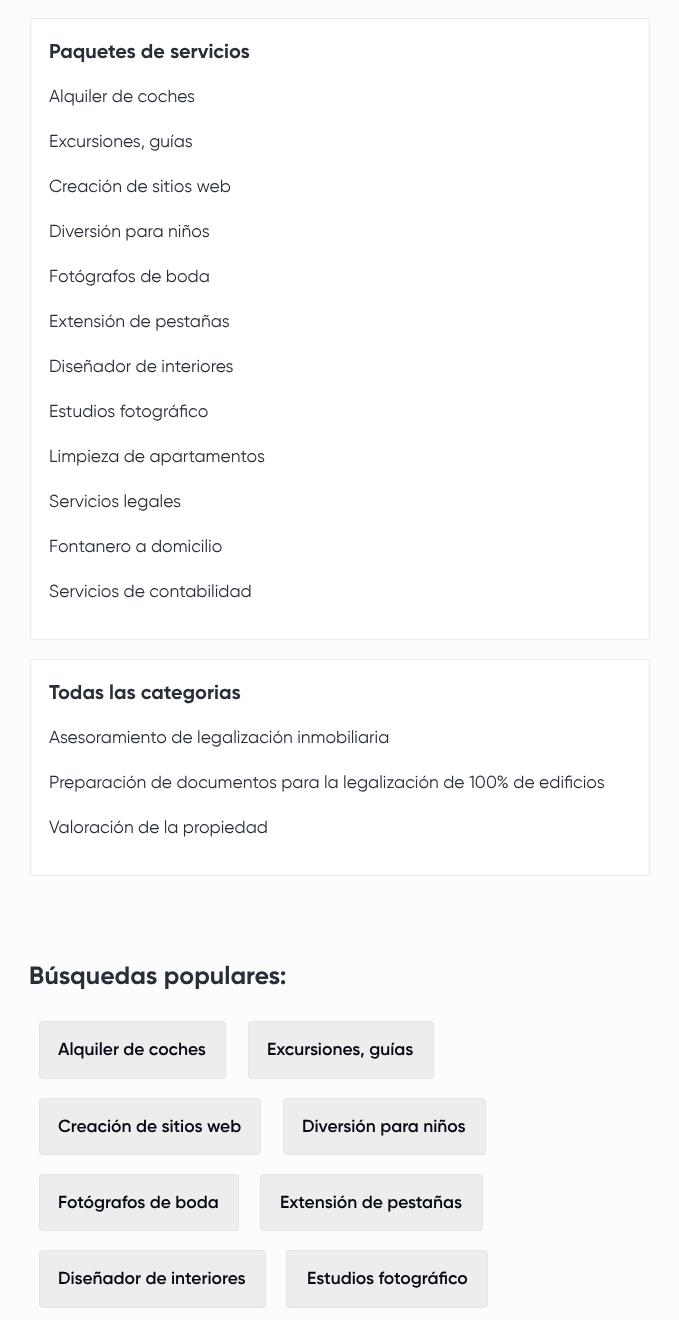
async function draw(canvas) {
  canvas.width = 679
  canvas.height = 1320
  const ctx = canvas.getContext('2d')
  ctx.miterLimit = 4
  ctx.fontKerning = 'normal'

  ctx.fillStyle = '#fcfcfc'
  ctx.fillRect(0, 0, 679, 1320)
  ctx.fillStyle = '#fff'
  ctx.beginPath()
  ctx.rect(30.5, 18.5, 619, 621)
  ctx.fill()
  ctx.strokeStyle = '#ebebeb'
  ctx.stroke()
  ctx.font = 'bold 20px Gilroy'
  ctx.fillStyle = '#292f38'
  ctx.fillText('Paquetes de servicios', 49, 58)
  ctx.font = '17.5px Gilroy'
  ctx.fillText('Alquiler de coches', 49, 102)
  ctx.fillText('Excursiones, guías', 49, 147)
  ctx.fillText('Creación de sitios web', 49, 192)
  ctx.fillText('Diversión para niños', 49, 237)
  ctx.fillText('Fotógrafos de boda', 49, 282)
  ctx.fillText('Extensión de pestañas', 49, 327)
  ctx.fillText('Diseñador de interiores', 49, 372)
  ctx.fillText('Estudios fotográfico', 49, 417)
  ctx.fillText('Limpieza de apartamentos', 49, 462)
  ctx.fillText('Servicios legales', 49, 507)
  ctx.fillText('Fontanero a domicilio', 49, 552)
  ctx.fillText('Servicios de contabilidad', 49, 597)
  ctx.fillStyle = '#fff'
  ctx.beginPath()
  ctx.rect(30.5, 659.5, 619, 216)
  ctx.fill()
  ctx.stroke()
  ctx.font = 'bold 20px Gilroy'
  ctx.fillStyle = '#292f38'
  ctx.fillText('Todas las categorias', 49, 699)
  ctx.font = '17.5px Gilroy'
  ctx.fillText('Asesoramiento de legalización inmobiliaria', 49, 743)
  ctx.fillText('Preparación de documentos para la legalización de 100% de edificios', 49, 788)
  ctx.fillText('Valoración de la propiedad', 49, 833)
  ctx.font = 'bold 25px Gilroy'
  ctx.fillText('Búsquedas populares:', 29, 984)
  ctx.fillStyle = '#ededed'
  ctx.beginPath()
  ctx.roundRect(39.5, 1021.5, 186, 57, 3.5)
  ctx.fill()
  ctx.strokeStyle = '#e4e4e4'
  ctx.stroke()
  ctx.font = '600 17.5px Gilroy'
  ctx.fillStyle = '#030712'
  ctx.fillText('Alquiler de coches', 58, 1055)
  ctx.fillStyle = '#ededed'
  ctx.beginPath()
  ctx.roundRect(248.5, 1021.5, 185, 57, 3.5)
  ctx.fill()
  ctx.stroke()
  ctx.fillStyle = '#030712'
  ctx.fillText('Excursiones, guías', 267, 1055)
  ctx.fillStyle = '#ededed'
  ctx.beginPath()
  ctx.roundRect(39.5, 1098.5, 221, 56, 3.5)
  ctx.fill()
  ctx.stroke()
  ctx.fillStyle = '#030712'
  ctx.fillText('Creación de sitios web', 58, 1132)
  ctx.fillStyle = '#ededed'
  ctx.beginPath()
  ctx.roundRect(283.5, 1098.5, 202, 56, 3.5)
  ctx.fill()
  ctx.stroke()
  ctx.fillStyle = '#030712'
  ctx.fillText('Diversión para niños', 302, 1132)
  ctx.fillStyle = '#ededed'
  ctx.beginPath()
  ctx.roundRect(39.5, 1174.5, 199, 56, 3.5)
  ctx.fill()
  ctx.stroke()
  ctx.fillStyle = '#030712'
  ctx.fillText('Fotógrafos de boda', 58, 1208)
  ctx.fillStyle = '#ededed'
  ctx.beginPath()
  ctx.roundRect(260.5, 1174.5, 222, 56, 3.5)
  ctx.fill()
  ctx.stroke()
  ctx.fillStyle = '#030712'
  ctx.fillText('Extensión de pestañas', 280, 1208)
  ctx.fillStyle = '#ededed'
  ctx.beginPath()
  ctx.roundRect(39.5, 1250.5, 226, 57, 3.5)
  ctx.fill()
  ctx.stroke()
  ctx.fillStyle = '#030712'
  ctx.fillText('Diseñador de interiores', 58, 1284)
  ctx.fillStyle = '#ededed'
  ctx.beginPath()
  ctx.roundRect(286.5, 1250.5, 201, 57, 3.5)
  ctx.fill()
  ctx.stroke()
  ctx.fillStyle = '#030712'
  ctx.fillText('Estudios fotográfico', 307, 1284)
}

draw(document.querySelector('canvas'))
